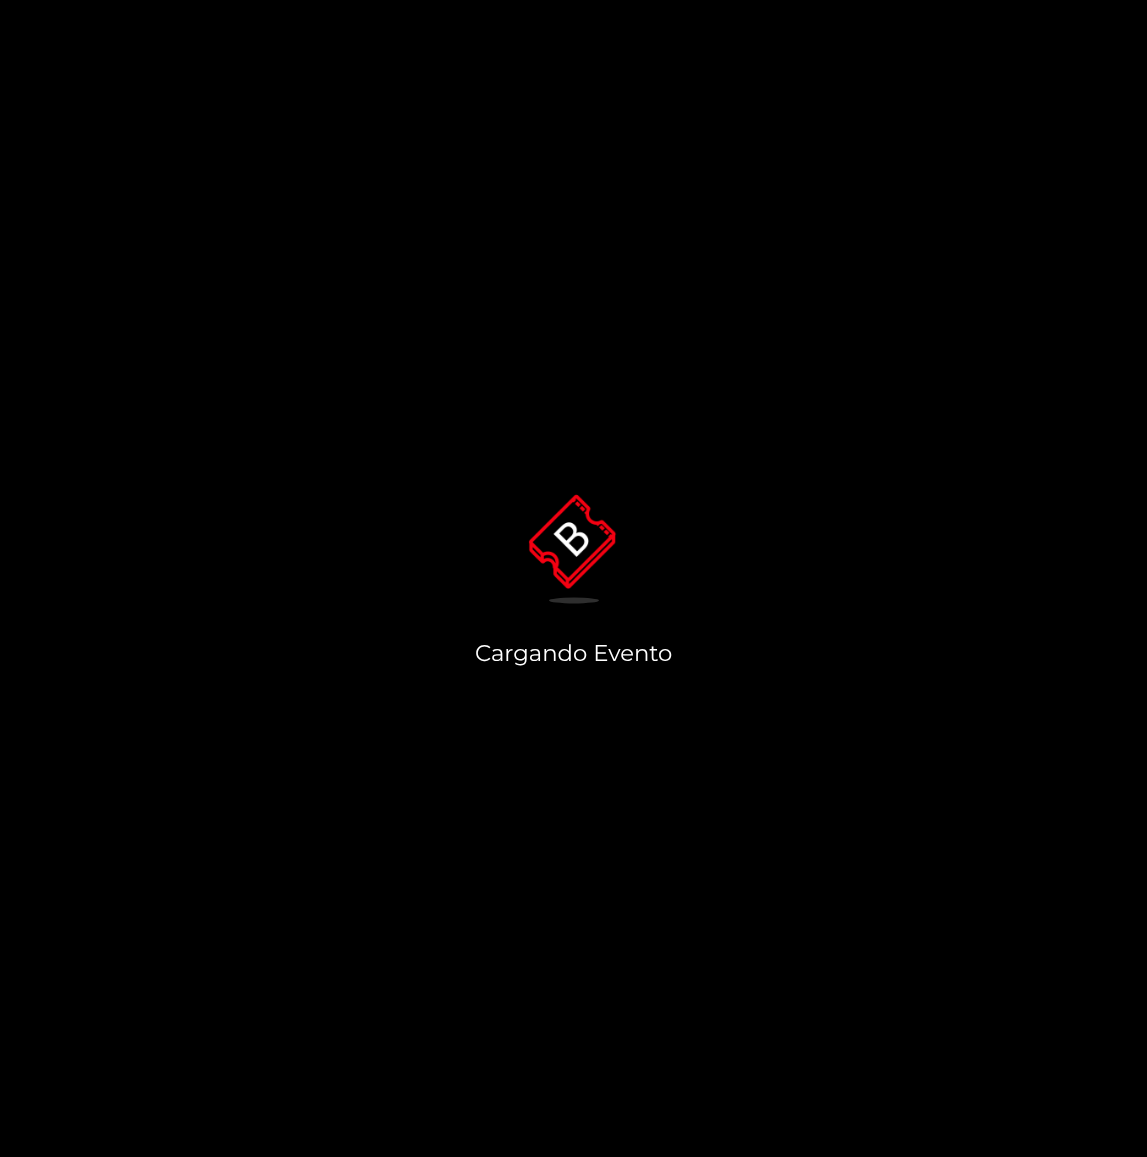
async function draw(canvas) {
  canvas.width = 1147
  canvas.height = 1157
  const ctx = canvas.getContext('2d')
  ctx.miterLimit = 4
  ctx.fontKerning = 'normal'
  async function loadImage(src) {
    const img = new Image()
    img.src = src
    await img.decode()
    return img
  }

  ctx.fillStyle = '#000'
  ctx.fillRect(0, 0, 1147, 1157)
  ctx.drawImage(await loadImage('image0.png'), 528, 494, 89, 95)
  ctx.fillStyle = '#2e2e2e'
  ctx.beginPath()
  ctx.ellipse(574, 600.5, 25, 3, 0, 0, 2 * Math.PI)
  ctx.fill()
  ctx.font = '100 22.75px Montserrat'
  ctx.fillStyle = '#fff'
  ctx.fillText('Cargando Evento', 475, 661)
}

draw(document.querySelector('canvas'))
